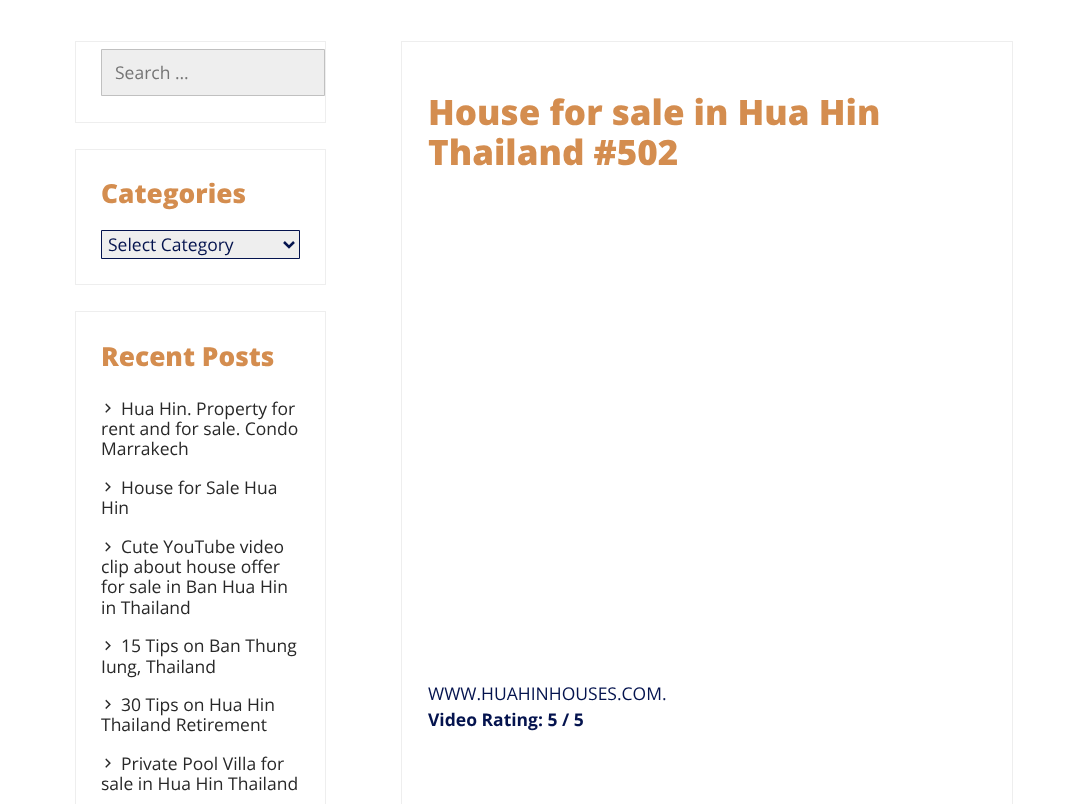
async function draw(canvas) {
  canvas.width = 1087
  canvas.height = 804
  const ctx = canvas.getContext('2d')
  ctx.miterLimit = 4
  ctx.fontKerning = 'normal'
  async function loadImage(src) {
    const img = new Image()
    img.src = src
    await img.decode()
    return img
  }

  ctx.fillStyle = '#fff'
  ctx.fillRect(0, 0, 1087, 804)
  ctx.strokeStyle = '#eee'
  ctx.strokeRect(75.5, 41.5, 250, 81)
  ctx.fillStyle = '#eee'
  ctx.beginPath()
  ctx.rect(101.5, 49.5, 223, 46)
  ctx.fill()
  ctx.strokeStyle = '#c0c0c0'
  ctx.stroke()
  ctx.font = '17.5px Open Sans'
  ctx.fillStyle = '#757575'
  ctx.fillText('Search …', 115, 79)
  ctx.strokeStyle = '#eee'
  ctx.strokeRect(75.5, 149.5, 250, 135)
  ctx.font = '800 26.25px Open Sans'
  ctx.fillStyle = '#d48d4f'
  ctx.fillText('Categories', 101, 203)
  ctx.fillStyle = '#eee'
  ctx.beginPath()
  ctx.rect(101.5, 230.5, 198, 28)
  ctx.fill()
  ctx.strokeStyle = '#04134e'
  ctx.stroke()
  ctx.beginPath()
  ctx.moveTo(284, 242)
  ctx.lineTo(289, 247)
  ctx.lineTo(294, 242)
  ctx.lineWidth = 2.5
  ctx.stroke()
  ctx.font = '17.5px Open Sans'
  ctx.fillStyle = '#04134e'
  ctx.fillText('Select Category', 108, 251)
  ctx.strokeStyle = '#eee'
  ctx.lineWidth = 1
  ctx.strokeRect(75.5, 311.5, 250, 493)
  ctx.font = '800 26.25px Open Sans'
  ctx.fillStyle = '#d48d4f'
  ctx.fillText('Recent Posts', 101, 366)
  ctx.drawImage(await loadImage('image0.png'), 105, 403, 6, 10)
  ctx.font = '17.5px Open Sans'
  ctx.fillStyle = '#282828'
  ctx.fillText('Hua Hin. Property for', 121, 415)
  ctx.fillText('rent and for sale. Condo', 101, 435)
  ctx.fillText('Marrakech', 101, 455)
  ctx.drawImage(await loadImage('image1.png'), 105, 482, 6, 10)
  ctx.fillText('House for Sale Hua', 121, 494)
  ctx.fillText('Hin', 101, 514)
  ctx.drawImage(await loadImage('image1.png'), 105, 542, 6, 10)
  ctx.fillText('Cute YouTube video', 121, 553)
  ctx.fillText('clip about house offer', 101, 573)
  ctx.fillText('for sale in Ban Hua Hin', 101, 593)
  ctx.fillText('in Thailand', 101, 614)
  ctx.drawImage(await loadImage('image2.png'), 105, 640, 6, 11)
  ctx.fillText('15 Tips on Ban Thung', 121, 652)
  ctx.fillText('Iung, Thailand', 101, 673)
  ctx.drawImage(await loadImage('image3.png'), 105, 699, 6, 11)
  ctx.fillText('30 Tips on Hua Hin', 121, 711)
  ctx.fillText('Thailand Retirement', 101, 731)
  ctx.drawImage(await loadImage('image0.png'), 105, 758, 6, 10)
  ctx.fillText('Private Pool Villa for', 121, 770)
  ctx.fillText('sale in Hua Hin Thailand', 101, 790)
  ctx.strokeRect(401.5, 41.5, 611, 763)
  ctx.font = '800 35px Open Sans'
  ctx.fillStyle = '#d48d4f'
  ctx.fillText('House for sale in Hua Hin', 428, 125)
  ctx.fillText('Thailand #502', 428, 165)
  ctx.font = '17.5px Open Sans'
  ctx.fillStyle = '#04134e'
  ctx.fillText('WWW.HUAHINHOUSES.COM.', 428, 700)
  ctx.font = 'bold 17.5px Open Sans'
  ctx.fillText('Video Rating: 5 / 5', 428, 726)
}

draw(document.querySelector('canvas'))
